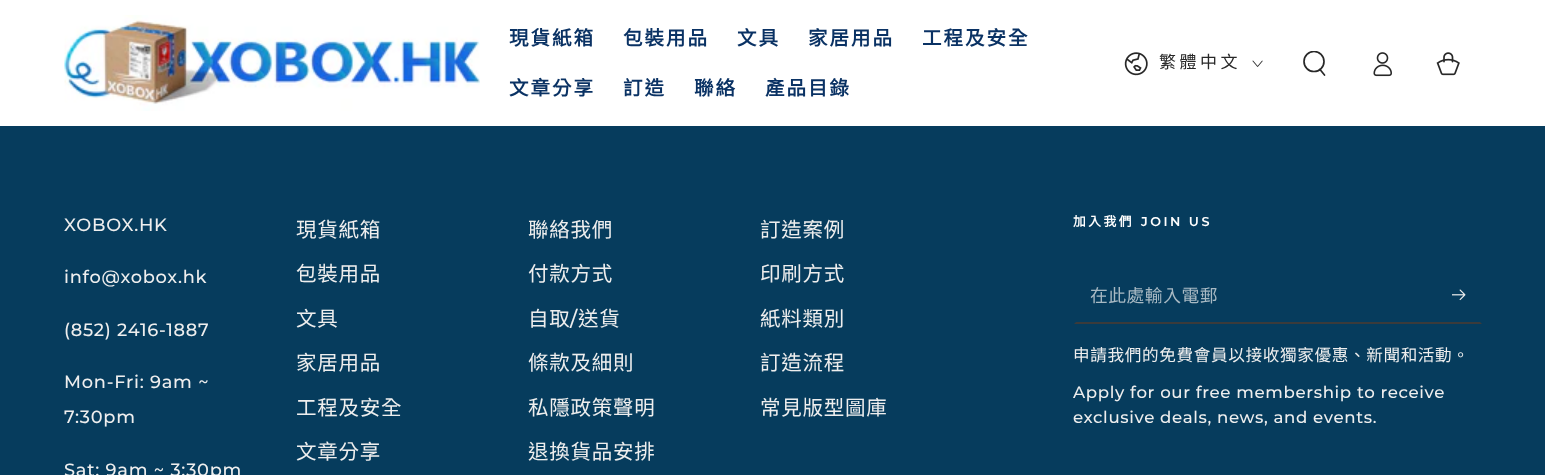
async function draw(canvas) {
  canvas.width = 1545
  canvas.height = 475
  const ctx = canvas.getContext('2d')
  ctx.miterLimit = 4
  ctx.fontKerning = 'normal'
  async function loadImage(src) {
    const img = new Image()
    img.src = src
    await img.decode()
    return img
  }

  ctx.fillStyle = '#063c5d'
  ctx.fillRect(0, 0, 1545, 475)
  ctx.fillStyle = '#fff'
  ctx.fillRect(0, 0, 1545, 126)
  ctx.drawImage(await loadImage('image0.png'), 64, 15, 416, 96)
  ctx.letterSpacing = '2px'
  ctx.font = 'bold 19.5px Noto Sans CJK TC'
  ctx.fillStyle = '#0a3264'
  ctx.fillText('現貨紙箱', 509, 45)
  ctx.fillText('包裝用品', 623, 45)
  ctx.fillText('文具', 737, 45)
  ctx.fillText('家居用品', 808, 45)
  ctx.fillText('工程及安全', 922, 45)
  ctx.fillText('文章分享', 509, 95)
  ctx.fillText('訂造', 623, 95)
  ctx.fillText('聯絡', 694, 95)
  ctx.fillText('產品目錄', 765, 95)
  ctx.drawImage(await loadImage('image1.png'), 1124, 52, 24, 24)
  ctx.letterSpacing = '3.5px'
  ctx.font = '17px Noto Sans CJK TC'
  ctx.fillStyle = '#282828'
  ctx.fillText('繁體中文', 1159, 68)
  ctx.drawImage(await loadImage('image2.png'), 1252, 60, 11, 7)
  ctx.save()
  ctx.beginPath()
  ctx.rect(1302, 51, 26, 26)
  ctx.clip()
  ctx.beginPath()
  ctx.arc(1314, 61.5, 10, 0, 2 * Math.PI)
  ctx.strokeStyle = '#282828'
  ctx.lineWidth = 1.7
  ctx.stroke()
  ctx.restore()
  ctx.beginPath()
  ctx.moveTo(1320, 69.5)
  ctx.lineTo(1324.5, 75)
  ctx.strokeStyle = '#282828'
  ctx.lineWidth = 1.7
  ctx.lineCap = 'round'
  ctx.stroke()
  ctx.drawImage(await loadImage('image3.png'), 1373, 52, 19, 25)
  ctx.drawImage(await loadImage('image4.png'), 1436, 52, 24, 24)
  ctx.letterSpacing = '0.75px'
  ctx.font = '500 17.8px Montserrat'
  ctx.fillStyle = '#eee'
  ctx.fillText('XOBOX.HK', 64, 231)
  ctx.fillText('info@xobox.hk', 64, 283)
  ctx.fillText('(852) 2416-1887', 64, 336)
  ctx.fillText('Mon-Fri: 9am ~', 64, 388)
  ctx.fillText('7:30pm', 64, 423)
  ctx.fillText('Sat: 9am ~ 3:30pm', 64, 476)
  ctx.font = '20.5px Noto Sans CJK TC'
  ctx.fillText('現貨紙箱', 296, 237)
  ctx.fillText('包裝用品', 296, 281)
  ctx.fillText('文具', 296, 326)
  ctx.fillText('家居用品', 296, 370)
  ctx.fillText('工程及安全', 296, 415)
  ctx.fillText('文章分享', 296, 459)
  ctx.fillText('聯絡我們', 528, 237)
  ctx.fillText('付款方式', 528, 281)
  ctx.fillText('自取', 528, 326)
  ctx.font = '500 20.5px Montserrat'
  ctx.fillText('/', 570, 326)
  ctx.font = '20.5px Noto Sans CJK TC'
  ctx.fillText('送貨', 578, 326)
  ctx.fillText('條款及細則', 528, 370)
  ctx.fillText('私隱政策聲明', 528, 415)
  ctx.fillText('退換貨品安排', 528, 459)
  ctx.fillText('訂造案例', 760, 237)
  ctx.fillText('印刷方式', 760, 281)
  ctx.fillText('紙料類別', 760, 326)
  ctx.fillText('訂造流程', 760, 370)
  ctx.fillText('常見版型圖庫', 760, 415)
  ctx.letterSpacing = '2.5px'
  ctx.font = 'bold 12.75px Noto Sans CJK TC'
  ctx.fillStyle = '#fff'
  ctx.fillText('加入我們', 1073, 226)
  ctx.font = '600 12.75px Montserrat'
  ctx.fillText('JOIN US', 1141, 226)
  ctx.fillStyle = '#3b3b3b'
  ctx.beginPath()
  ctx.moveTo(1482, 324)
  ctx.lineTo(1074, 324)
  ctx.lineTo(1076, 322)
  ctx.lineTo(1480, 322)
  ctx.closePath()
  ctx.fill()
  ctx.letterSpacing = '0.5px'
  ctx.font = '17.8px Noto Sans CJK TC'
  ctx.fillStyle = '#a8b9c3'
  ctx.fillText('在此處輸入電郵', 1090, 302)
  ctx.drawImage(await loadImage('image5.png'), 1452, 289, 14, 12)
  ctx.letterSpacing = '0.65px'
  ctx.font = '16.6px Noto Sans CJK TC'
  ctx.fillStyle = '#eee'
  ctx.fillText('申請我們的免費會員以接收獨家優惠、新聞和活動。', 1073, 361)
  ctx.font = '500 16.6px Montserrat'
  ctx.fillText('Apply for our free membership to receive', 1073, 398)
  ctx.fillText('exclusive deals, news, and events.', 1073, 423)
}

draw(document.querySelector('canvas'))
